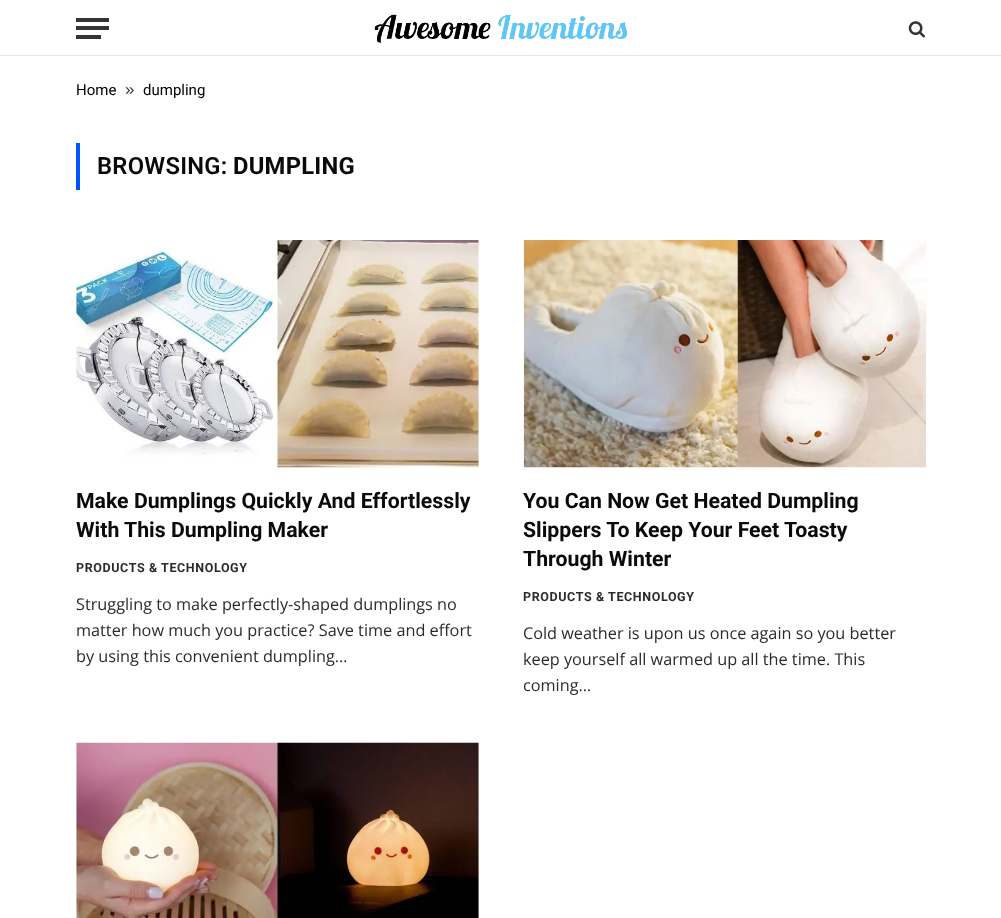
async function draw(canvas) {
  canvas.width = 1001
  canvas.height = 918
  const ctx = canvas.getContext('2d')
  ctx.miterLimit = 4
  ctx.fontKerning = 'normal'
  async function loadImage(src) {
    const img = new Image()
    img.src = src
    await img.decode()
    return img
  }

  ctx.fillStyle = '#fff'
  ctx.fillRect(0, 0, 1001, 918)
  ctx.fillStyle = '#e8e8e8'
  ctx.fillRect(0, 55, 1001, 1)
  ctx.fillStyle = '#333'
  ctx.fillRect(76, 35, 25, 4)
  ctx.fillRect(76, 18, 33, 4)
  ctx.fillRect(76, 26, 33, 4)
  ctx.drawImage(await loadImage('image0.png'), 374, 14, 253, 29)
  ctx.drawImage(await loadImage('image1.png'), 908, 21, 17, 17)
  ctx.font = '15px Roboto'
  ctx.fillStyle = '#000'
  ctx.fillText('Home', 76, 95)
  ctx.font = '17px Liberation Sans'
  ctx.fillStyle = '#333'
  ctx.fillText('»', 125, 95)
  ctx.font = '15px Roboto'
  ctx.fillStyle = '#000'
  ctx.fillText('dumpling', 143, 95)
  ctx.fillStyle = '#0054ff'
  ctx.fillRect(76, 143, 4, 47)
  ctx.letterSpacing = '0.25px'
  ctx.font = '600 23.75px Roboto'
  ctx.fillStyle = '#0a0a0a'
  ctx.fillText('BROWSING:', 97, 174)
  ctx.font = 'bold 23.75px Roboto'
  ctx.fillText('DUMPLING', 233, 174)
  ctx.drawImage(await loadImage('image2.png'), 76, 240, 403, 228)
  ctx.letterSpacing = '0px'
  ctx.font = 'bold 21.25px Roboto'
  ctx.fillText('Make Dumplings Quickly And Effortlessly', 76, 508)
  ctx.fillText('With This Dumpling Maker', 76, 537)
  ctx.letterSpacing = '0.6px'
  ctx.font = 'bold 12.5px Roboto'
  ctx.fillStyle = '#2b2b2b'
  ctx.fillText('PRODUCTS & TECHNOLOGY', 76, 572)
  ctx.letterSpacing = '0px'
  ctx.font = '16.25px Open Sans'
  ctx.fillText('Struggling to make perfectly-shaped dumplings no', 76, 610)
  ctx.fillText('matter how much you practice? Save time and effort', 76, 636)
  ctx.fillText('by using this convenient dumpling…', 76, 662)
  ctx.drawImage(await loadImage('image3.png'), 523, 240, 404, 228)
  ctx.font = 'bold 21.25px Roboto'
  ctx.fillStyle = '#0a0a0a'
  ctx.fillText('You Can Now Get Heated Dumpling', 523, 508)
  ctx.fillText('Slippers To Keep Your Feet Toasty', 523, 537)
  ctx.fillText('Through Winter', 523, 566)
  ctx.letterSpacing = '0.6px'
  ctx.font = 'bold 12.5px Roboto'
  ctx.fillStyle = '#2b2b2b'
  ctx.fillText('PRODUCTS & TECHNOLOGY', 523, 601)
  ctx.letterSpacing = '0px'
  ctx.font = '16.25px Open Sans'
  ctx.fillText('Cold weather is upon us once again so you better', 523, 639)
  ctx.fillText('keep yourself all warmed up all the time. This', 523, 665)
  ctx.fillText('coming…', 523, 691)
  ctx.drawImage(await loadImage('image4.png'), 76, 742, 403, 176)
}

draw(document.querySelector('canvas'))
